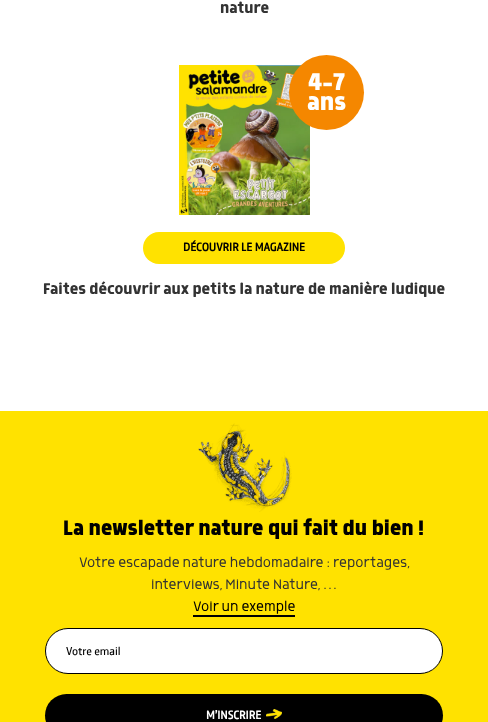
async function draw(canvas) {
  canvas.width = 488
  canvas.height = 722
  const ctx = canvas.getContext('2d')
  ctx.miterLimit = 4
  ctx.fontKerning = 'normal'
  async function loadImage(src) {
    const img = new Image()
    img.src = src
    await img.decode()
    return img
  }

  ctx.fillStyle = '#fff'
  ctx.fillRect(0, 0, 488, 722)
  ctx.font = '500 18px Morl'
  ctx.fillStyle = '#333'
  ctx.fillText('nature', 220, 13)
  ctx.drawImage(await loadImage('image0.png'), 179, 65, 131, 150)
  ctx.fillStyle = '#f58700'
  ctx.beginPath()
  ctx.arc(326.5, 92.5, 37.5, 0, 2 * Math.PI)
  ctx.fill()
  ctx.font = 'bold 28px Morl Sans'
  ctx.fillStyle = '#fff'
  ctx.fillText('4-7', 308, 90)
  ctx.fillText('ans', 307, 110)
  ctx.fillStyle = '#ffe200'
  ctx.beginPath()
  ctx.roundRect(143, 232, 202, 32, 16)
  ctx.fill()
  ctx.font = 'bold 12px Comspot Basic'
  ctx.fillStyle = '#000'
  ctx.fillText('DÉCOUVRIR LE MAGAZINE', 183, 251)
  ctx.font = '500 18px Morl'
  ctx.fillStyle = '#333'
  ctx.fillText('Faites découvrir aux petits la nature de manière ludique', 43, 294)
  ctx.fillStyle = '#ffe200'
  ctx.fillRect(0, 411, 488, 311)
  ctx.drawImage(await loadImage('image1.png'), 198, 423, 94, 89)
  ctx.font = 'bold 24px Morl Sans'
  ctx.fillStyle = '#000'
  ctx.fillText('La newsletter nature qui fait du bien !', 63, 535)
  ctx.font = '300 16px Morl Sans'
  ctx.fillStyle = '#333'
  ctx.fillText('Votre escapade nature hebdomadaire : reportages,', 79, 567)
  ctx.fillText('interviews, Minute Nature, …', 151, 589)
  ctx.fillStyle = '#000'
  ctx.fillText('Voir un exemple', 193, 611)
  ctx.fillRect(193, 615, 102, 2)
  ctx.fillStyle = '#fff'
  ctx.beginPath()
  ctx.roundRect(45.5, 628.5, 397, 45, 22.5)
  ctx.fill()
  ctx.strokeStyle = '#000'
  ctx.stroke()
  ctx.font = '12px Comspot Basic'
  ctx.fillStyle = '#000'
  ctx.fillText('Votre email', 66, 655)
  ctx.beginPath()
  ctx.roundRect(45, 694, 398, 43, 21.5)
  ctx.fill()
  ctx.font = 'bold 12px Comspot Basic'
  ctx.fillStyle = '#fff'
  ctx.fillText('M’INSCRIRE', 206, 719)
  ctx.drawImage(await loadImage('image2.png'), 266, 709, 16, 10)
}

draw(document.querySelector('canvas'))
